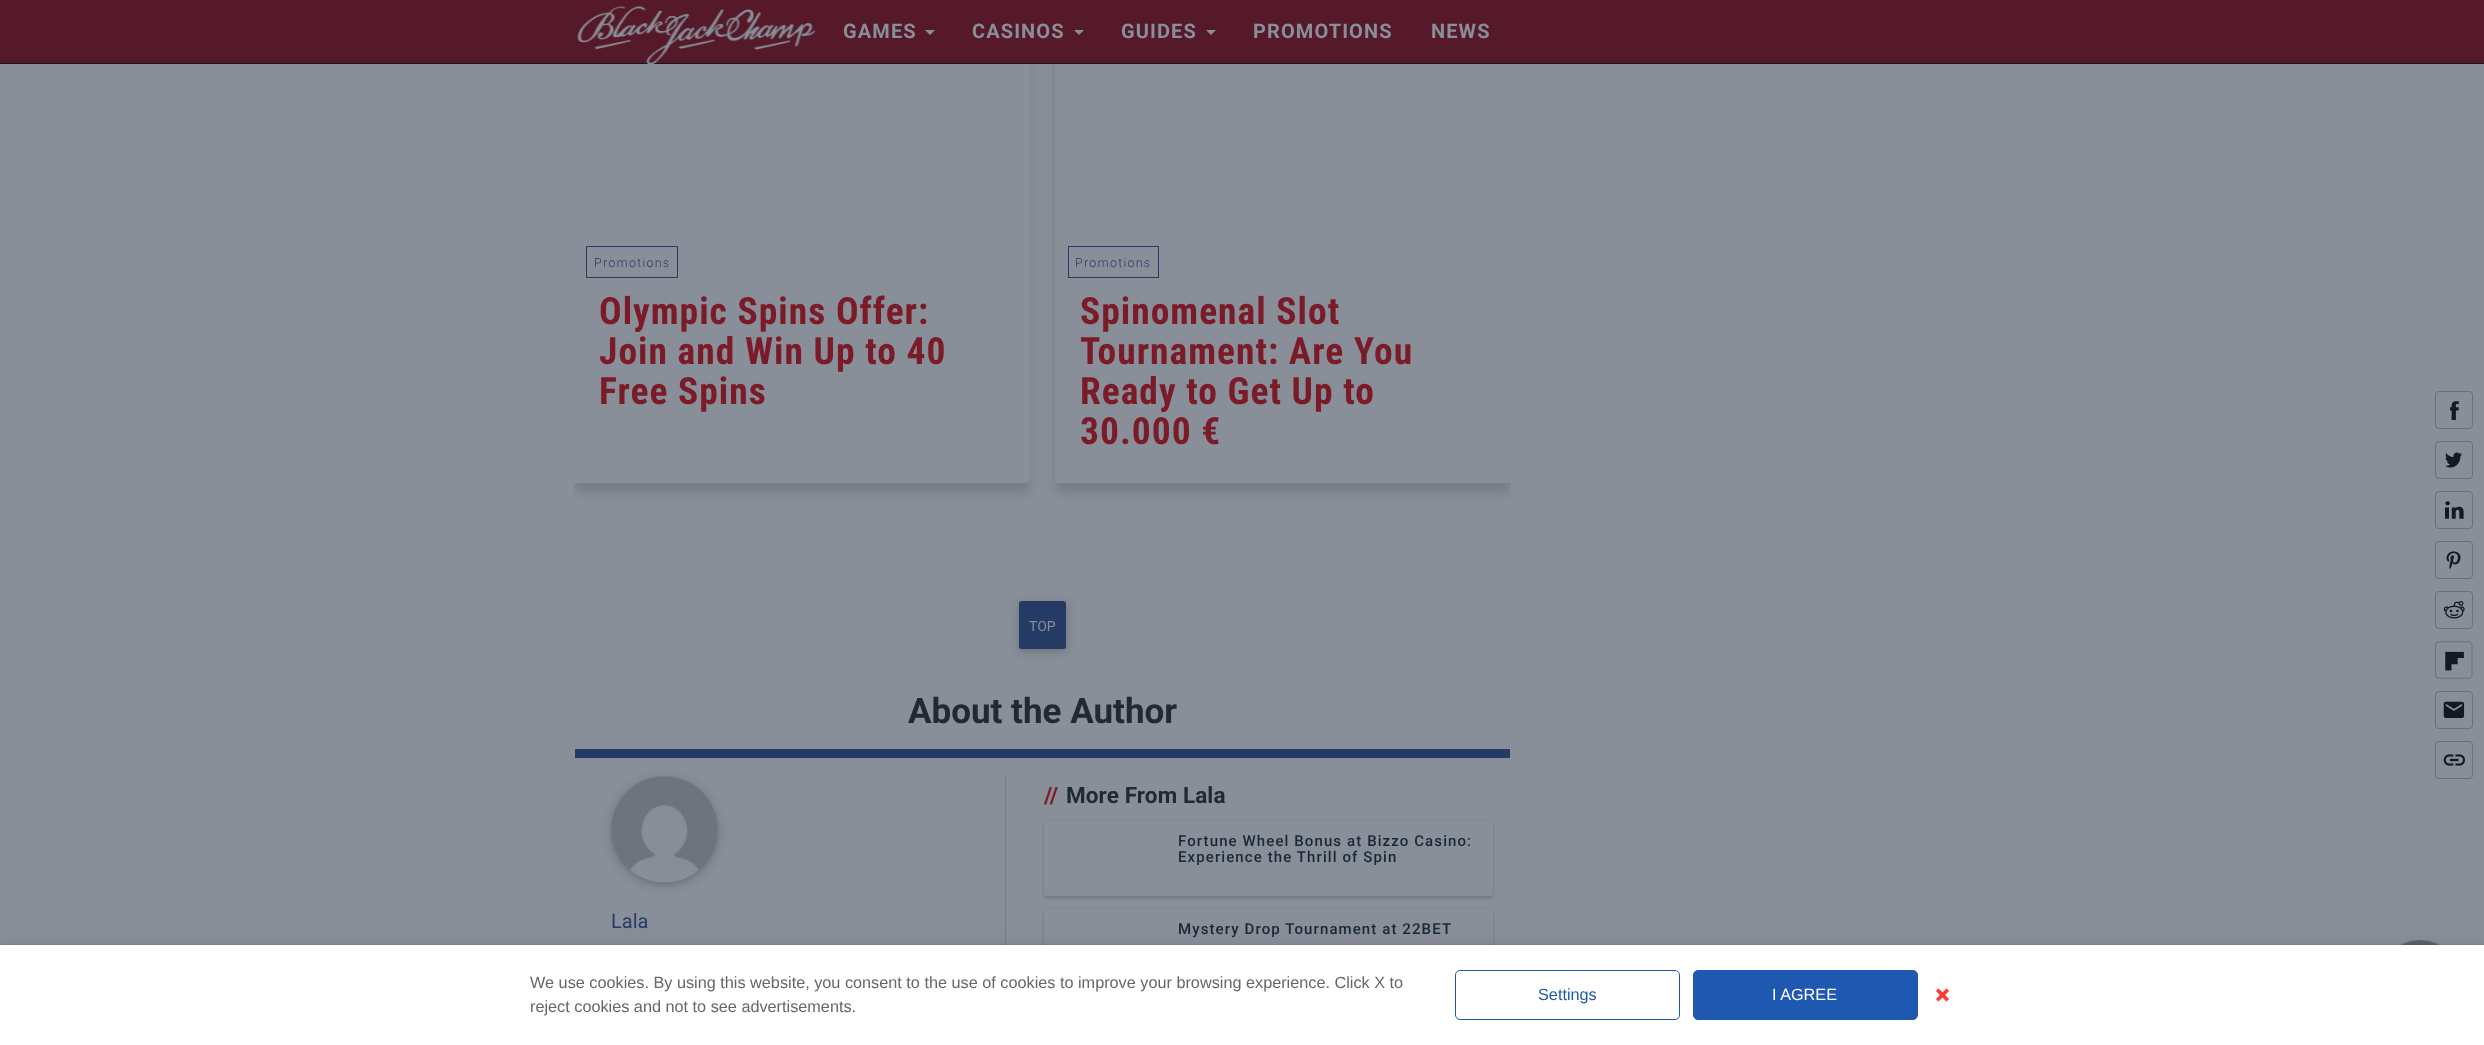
async function draw(canvas) {
  canvas.width = 2484
  canvas.height = 1045
  const ctx = canvas.getContext('2d')
  ctx.miterLimit = 4
  ctx.fontKerning = 'normal'
  async function loadImage(src) {
    const img = new Image()
    img.src = src
    await img.decode()
    return img
  }

  ctx.fillStyle = '#898f99'
  ctx.fillRect(0, 0, 2484, 1045)
  ctx.save()
  ctx.beginPath()
  ctx.rect(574, 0, 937, 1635)
  ctx.clip()
  ctx.beginPath()
  ctx.moveTo(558, 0)
  ctx.lineTo(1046, 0)
  ctx.lineTo(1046, 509)
  ctx.lineTo(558, 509)
  ctx.closePath()
  ctx.moveTo(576.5, -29)
  ctx.lineTo(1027.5, -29)
  ctx.bezierCurveTo(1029, -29, 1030, -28, 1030, -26.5)
  ctx.lineTo(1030, 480.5)
  ctx.bezierCurveTo(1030, 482, 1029, 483, 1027.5, 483)
  ctx.lineTo(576.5, 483)
  ctx.bezierCurveTo(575, 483, 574, 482, 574, 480.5)
  ctx.lineTo(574, -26.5)
  ctx.bezierCurveTo(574, -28, 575, -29, 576.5, -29)
  ctx.closePath()
  ctx.clip('evenodd')
  ctx.fillStyle = '#13192426'
  ctx.filter = 'blur(5px)'
  ctx.beginPath()
  ctx.roundRect(574, -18, 456, 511, 2.5)
  ctx.fill()
  ctx.filter = 'none'
  ctx.restore()
  ctx.save()
  ctx.beginPath()
  ctx.rect(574, 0, 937, 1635)
  ctx.clip()
  ctx.beginPath()
  ctx.moveTo(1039, 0)
  ctx.lineTo(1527, 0)
  ctx.lineTo(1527, 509)
  ctx.lineTo(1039, 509)
  ctx.closePath()
  ctx.moveTo(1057.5, -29)
  ctx.lineTo(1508.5, -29)
  ctx.bezierCurveTo(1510, -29, 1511, -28, 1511, -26.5)
  ctx.lineTo(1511, 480.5)
  ctx.bezierCurveTo(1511, 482, 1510, 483, 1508.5, 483)
  ctx.lineTo(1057.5, 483)
  ctx.bezierCurveTo(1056, 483, 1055, 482, 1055, 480.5)
  ctx.lineTo(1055, -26.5)
  ctx.bezierCurveTo(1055, -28, 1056, -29, 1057.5, -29)
  ctx.closePath()
  ctx.clip('evenodd')
  ctx.fillStyle = '#13192426'
  ctx.filter = 'blur(5px)'
  ctx.beginPath()
  ctx.roundRect(1055, -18, 456, 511, 2.5)
  ctx.fill()
  ctx.filter = 'none'
  ctx.restore()
  ctx.fillStyle = '#551929'
  ctx.fillRect(0, 0, 2484, 63)
  ctx.fillStyle = '#131924'
  ctx.fillRect(0, 63, 2484, 1)
  ctx.drawImage(await loadImage('image0.png'), 567, 5, 249, 59)
  ctx.letterSpacing = '1.1px'
  ctx.font = 'bold 20px Roboto'
  ctx.fillStyle = '#898f99'
  ctx.fillText('GAMES', 843, 38)
  ctx.beginPath()
  ctx.moveTo(925, 30)
  ctx.lineTo(935, 30)
  ctx.lineTo(930, 35)
  ctx.closePath()
  ctx.fill()
  ctx.fillText('CASINOS', 972, 38)
  ctx.beginPath()
  ctx.moveTo(1074, 30)
  ctx.lineTo(1084, 30)
  ctx.lineTo(1079, 35)
  ctx.closePath()
  ctx.fill()
  ctx.fillText('GUIDES', 1121, 38)
  ctx.beginPath()
  ctx.moveTo(1206, 30)
  ctx.lineTo(1216, 30)
  ctx.lineTo(1211, 35)
  ctx.closePath()
  ctx.fill()
  ctx.fillText('PROMOTIONS', 1253, 38)
  ctx.fillText('NEWS', 1431, 38)
  ctx.strokeStyle = '#243c65'
  ctx.strokeRect(586.5, 246.5, 91, 31)
  ctx.letterSpacing = '1.25px'
  ctx.font = '300 12.5px Roboto'
  ctx.fillStyle = '#283b65'
  ctx.fillText('Promotions', 594, 267)
  ctx.letterSpacing = '1px'
  ctx.font = 'bold 37.5px Roboto Condensed'
  ctx.fillStyle = '#7b1b28'
  ctx.fillText('Olympic Spins Offer:', 599, 324)
  ctx.fillText('Join and Win Up to 40', 599, 364)
  ctx.fillText('Free Spins', 599, 404)
  ctx.strokeRect(1068.5, 246.5, 90, 31)
  ctx.letterSpacing = '1.25px'
  ctx.font = '300 12.5px Roboto'
  ctx.fillStyle = '#283b65'
  ctx.fillText('Promotions', 1075, 267)
  ctx.letterSpacing = '1px'
  ctx.font = 'bold 37.5px Roboto Condensed'
  ctx.fillStyle = '#7b1b28'
  ctx.fillText('Spinomenal Slot', 1080, 324)
  ctx.fillText('Tournament: Are You', 1080, 364)
  ctx.fillText('Ready to Get Up to', 1080, 404)
  ctx.fillText('30.000 €', 1080, 444)
  ctx.fillStyle = '#1319241f'
  ctx.filter = 'blur(6px)'
  ctx.beginPath()
  ctx.roundRect(1019, 604, 47, 47, 2.5)
  ctx.fill()
  ctx.filter = 'none'
  ctx.fillStyle = '#13192429'
  ctx.filter = 'blur(3px)'
  ctx.beginPath()
  ctx.roundRect(1019, 604, 47, 47, 2.5)
  ctx.fill()
  ctx.filter = 'none'
  ctx.fillStyle = '#243c65'
  ctx.beginPath()
  ctx.roundRect(1019, 601, 47, 48, 2.5)
  ctx.fill()
  ctx.letterSpacing = '0px'
  ctx.font = '14px Roboto'
  ctx.fillStyle = '#898f99'
  ctx.fillText('TOP', 1029, 631)
  ctx.font = 'bold 35px Roboto'
  ctx.fillStyle = '#232933'
  ctx.fillText('About the Author', 908, 723)
  ctx.fillStyle = '#243c65'
  ctx.fillRect(575, 749, 935, 9)
  ctx.fillStyle = '#1319241f'
  ctx.filter = 'blur(6px)'
  ctx.beginPath()
  ctx.roundRect(611, 779, 107, 106, 53)
  ctx.fill()
  ctx.filter = 'none'
  ctx.fillStyle = '#13192429'
  ctx.filter = 'blur(3px)'
  ctx.beginPath()
  ctx.roundRect(611, 779, 107, 106, 53)
  ctx.fill()
  ctx.filter = 'none'
  ctx.drawImage(await loadImage('image1.png'), 611, 776, 107, 107)
  ctx.font = '20px Roboto'
  ctx.fillStyle = '#283b65'
  ctx.fillText('Lala', 611, 928)
  ctx.fillStyle = '#777d87'
  ctx.fillRect(1005, 776, 1, 169)
  ctx.letterSpacing = '0.1px'
  ctx.font = 'bold 22.5px Roboto'
  ctx.fillStyle = '#7b1b28'
  ctx.fillText('//', 1044, 803)
  ctx.fillStyle = '#232933'
  ctx.fillText('More From Lala', 1066, 803)
  ctx.fillStyle = '#1319241f'
  ctx.filter = 'blur(1px)'
  ctx.beginPath()
  ctx.roundRect(1044, 821, 449, 75, 2.5)
  ctx.fill()
  ctx.filter = 'none'
  ctx.filter = 'blur(1px)'
  ctx.beginPath()
  ctx.roundRect(1044, 824, 449, 75, 2.5)
  ctx.fill()
  ctx.filter = 'none'
  ctx.fillStyle = '#898f99'
  ctx.beginPath()
  ctx.roundRect(1044, 821, 449, 75, 2.5)
  ctx.fill()
  ctx.letterSpacing = '1.1px'
  ctx.font = '500 15px Roboto'
  ctx.fillStyle = '#192838'
  ctx.fillText('Fortune Wheel Bonus at Bizzo Casino:', 1178, 846)
  ctx.fillText('Experience the Thrill of Spin', 1178, 862)
  ctx.fillStyle = '#1319241f'
  ctx.filter = 'blur(1px)'
  ctx.beginPath()
  ctx.roundRect(1044, 909, 449, 75, 2.5)
  ctx.fill()
  ctx.filter = 'none'
  ctx.filter = 'blur(1px)'
  ctx.beginPath()
  ctx.roundRect(1044, 911, 449, 75, 2.5)
  ctx.fill()
  ctx.filter = 'none'
  ctx.fillStyle = '#898f99'
  ctx.beginPath()
  ctx.roundRect(1044, 909, 449, 75, 2.5)
  ctx.fill()
  ctx.fillStyle = '#192838'
  ctx.fillText('Mystery Drop Tournament at 22BET', 1178, 934)
  ctx.drawImage(await loadImage('image2.png'), 2435, 391, 38, 38)
  ctx.drawImage(await loadImage('image3.png'), 2435, 441, 38, 38)
  ctx.drawImage(await loadImage('image4.png'), 2435, 491, 38, 38)
  ctx.drawImage(await loadImage('image5.png'), 2435, 541, 38, 38)
  ctx.drawImage(await loadImage('image6.png'), 2435, 591, 38, 38)
  ctx.drawImage(await loadImage('image7.png'), 2435, 641, 38, 38)
  ctx.drawImage(await loadImage('image8.png'), 2435, 691, 38, 38)
  ctx.drawImage(await loadImage('image9.png'), 2435, 741, 38, 38)
  ctx.drawImage(await loadImage('image10.png'), 2400, 940, 40, 5)
  ctx.fillStyle = '#242f424f'
  ctx.filter = 'blur(12.5px)'
  ctx.beginPath()
  ctx.rect(-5, 953, 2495, 85)
  ctx.fill()
  ctx.filter = 'none'
  ctx.strokeStyle = '#242f4214'
  ctx.strokeRect(-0.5, 944.5, 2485, 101)
  ctx.fillStyle = '#fff'
  ctx.fillRect(0, 945, 2484, 100)
  ctx.letterSpacing = '0px'
  ctx.font = '16.25px Liberation Sans'
  ctx.fillStyle = '#666'
  ctx.fillText('We use cookies. By using this website, you consent to the use of cookies to improve your browsing experience. Click X to', 530, 988)
  ctx.fillText('reject cookies and not to see advertisements.', 530, 1012)
  ctx.beginPath()
  ctx.roundRect(1455.5, 970.5, 224, 49, 4.5)
  ctx.strokeStyle = '#1e58b1'
  ctx.stroke()
  ctx.fillStyle = '#1e58b1'
  ctx.fillText('Settings', 1538, 1000)
  ctx.beginPath()
  ctx.roundRect(1693.5, 970.5, 224, 49, 4.5)
  ctx.fill()
  ctx.stroke()
  ctx.fillStyle = '#fff'
  ctx.fillText('I AGREE', 1772, 1000)
  ctx.drawImage(await loadImage('image11.png'), 1936, 988, 13, 14)
}

draw(document.querySelector('canvas'))
